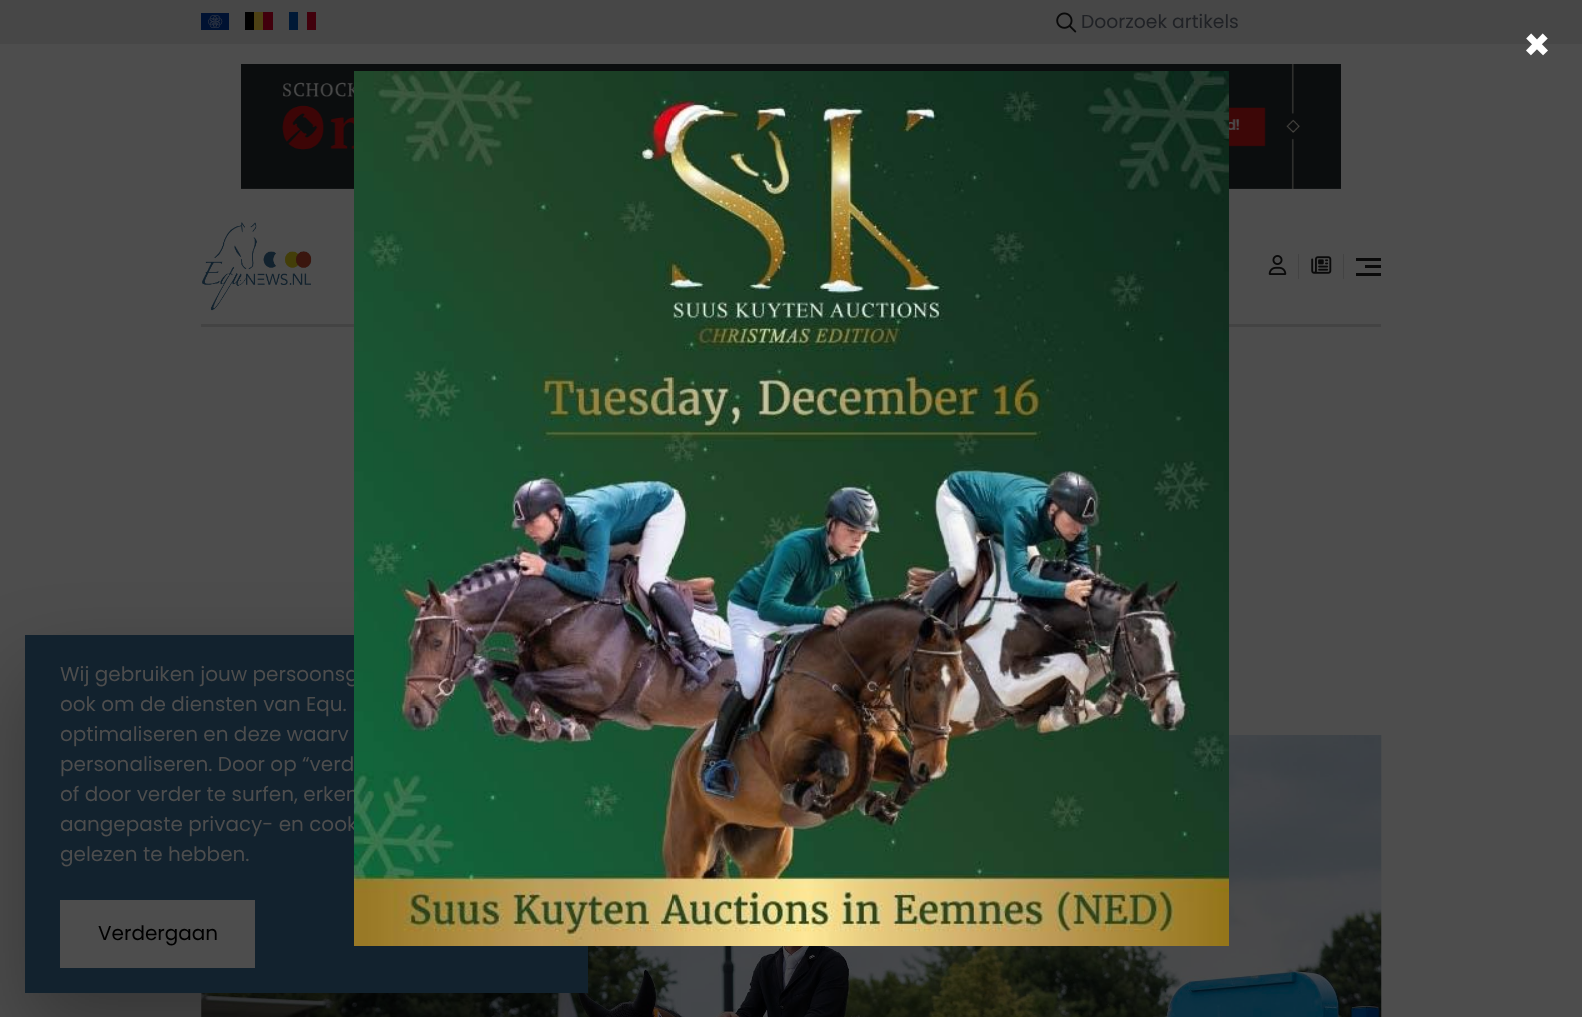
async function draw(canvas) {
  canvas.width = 1582
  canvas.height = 1017
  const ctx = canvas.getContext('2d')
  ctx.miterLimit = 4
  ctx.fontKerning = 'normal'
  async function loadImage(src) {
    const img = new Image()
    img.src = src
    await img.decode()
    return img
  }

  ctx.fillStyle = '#4d4d4d'
  ctx.fillRect(0, 0, 1582, 1017)
  ctx.fillStyle = '#474747'
  ctx.fillRect(0, 0, 1582, 44)
  ctx.drawImage(await loadImage('image0.png'), 201, 13, 28, 17)
  ctx.fillStyle = '#4d4114'
  ctx.fillRect(254, 12, 9, 18)
  ctx.fillStyle = '#000'
  ctx.fillRect(245, 12, 9, 18)
  ctx.fillStyle = '#41000c'
  ctx.fillRect(263, 12, 10, 18)
  ctx.fillStyle = '#001936'
  ctx.fillRect(289, 12, 9, 18)
  ctx.fillStyle = '#41000c'
  ctx.fillRect(307, 12, 9, 18)
  ctx.drawImage(await loadImage('image1.png'), 1056, 12, 21, 21)
  ctx.font = '18.75px Poppins'
  ctx.fillStyle = '#202226'
  ctx.fillText('Doorzoek artikels', 1081, 28)
  ctx.font = 'bold 44px Poppins'
  ctx.fillStyle = '#fff'
  ctx.fillText('×', 1523, 60)
  ctx.drawImage(await loadImage('image3.png'), 241, 64, 1100, 125)
  ctx.fillStyle = '#434343'
  ctx.fillRect(201, 324, 1180, 3)
  ctx.drawImage(await loadImage('image7.png'), 201, 735, 1181, 282)
  ctx.fillStyle = '#0000004d'
  ctx.filter = 'blur(42.5px)'
  ctx.beginPath()
  ctx.rect(25, 675, 563, 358)
  ctx.fill()
  ctx.filter = 'none'
  ctx.fillStyle = '#12222e'
  ctx.fillRect(25, 635, 563, 358)
  ctx.font = '20px Poppins'
  ctx.fillStyle = '#4d4d4d'
  ctx.fillText('Wij gebruiken jouw persoonsg', 60, 681)
  ctx.fillText('of door verder te surfen, erken', 60, 801)
  ctx.fillText('aangepaste privacy- en cook', 60, 831)
  ctx.drawImage(await loadImage('image2.png'), 354, 71, 875, 875)
  ctx.drawImage(await loadImage('image4.png'), 202, 222, 110, 89)
  ctx.drawImage(await loadImage('image5.png'), 1268, 255, 19, 20)
  ctx.fillStyle = '#434343'
  ctx.fillRect(1298, 254, 1, 25)
  ctx.drawImage(await loadImage('image6.png'), 1311, 256, 21, 18)
  ctx.fillRect(1343, 254, 1, 25)
  ctx.fillStyle = '#0a0a0a'
  ctx.fillRect(1356, 258, 25, 3)
  ctx.fillRect(1365, 265, 16, 3)
  ctx.fillRect(1356, 273, 25, 3)
  ctx.fillStyle = '#4d4d4d'
  ctx.fillText('ook om de diensten van Equ.', 60, 711)
  ctx.fillText('optimaliseren en deze waarv', 60, 741)
  ctx.fillText('personaliseren. Door op “verd', 60, 771)
  ctx.fillText('gelezen te hebben.', 60, 861)
  ctx.fillRect(60, 900, 195, 68)
  ctx.fillStyle = '#000'
  ctx.fillText('Verdergaan', 98, 940)
}

draw(document.querySelector('canvas'))
